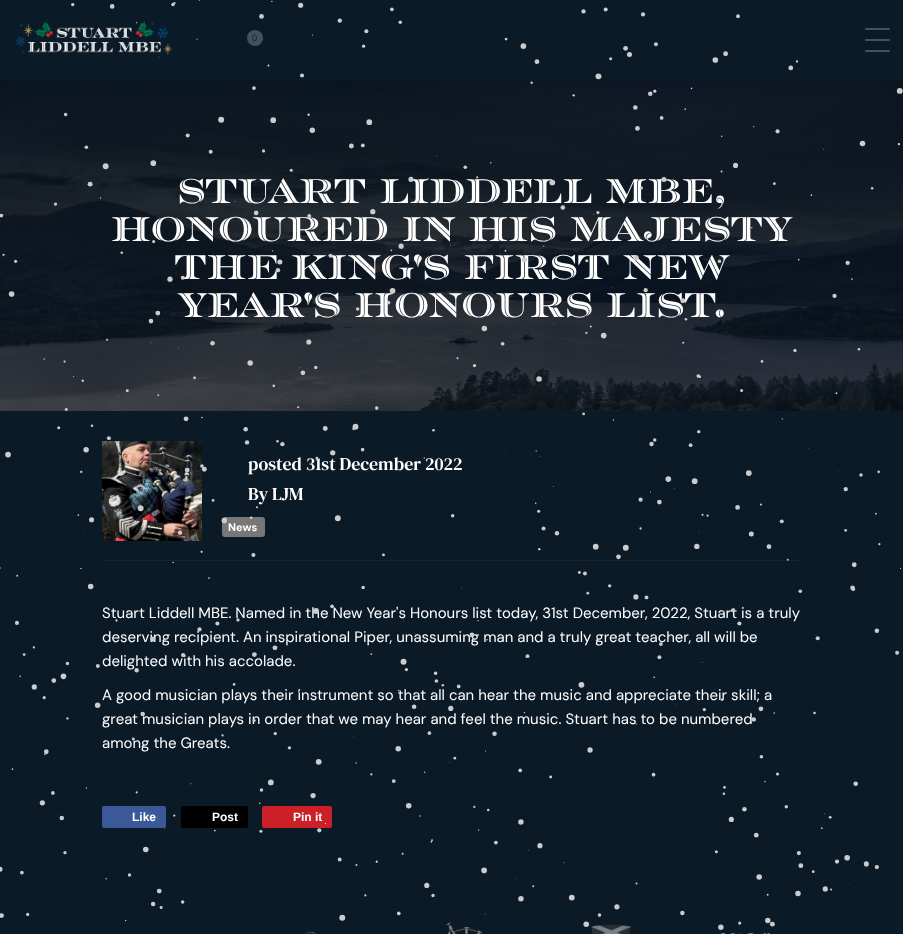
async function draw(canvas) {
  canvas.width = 903
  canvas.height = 934
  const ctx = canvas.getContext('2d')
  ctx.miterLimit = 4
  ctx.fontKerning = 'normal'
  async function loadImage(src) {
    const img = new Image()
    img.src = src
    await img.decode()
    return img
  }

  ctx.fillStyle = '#0b1a27'
  ctx.fillRect(0, 0, 903, 934)
  ctx.drawImage(await loadImage('image1.png'), 15, 21, 157, 38)
  ctx.fillStyle = '#405261'
  ctx.beginPath()
  ctx.arc(255, 38, 8, 0, 2 * Math.PI)
  ctx.fill()
  ctx.font = '9px Open Sans'
  ctx.fillStyle = '#0b1a27'
  ctx.fillText('0', 252, 41)
  ctx.fillStyle = '#405261'
  ctx.beginPath()
  ctx.roundRect(865, 28, 25, 2, 1)
  ctx.fill()
  ctx.beginPath()
  ctx.roundRect(865, 39, 25, 2, 1)
  ctx.fill()
  ctx.beginPath()
  ctx.roundRect(865, 50, 25, 2, 1)
  ctx.fill()
  ctx.drawImage(await loadImage('image2.png'), 0, 80, 903, 331)
  ctx.font = '34.5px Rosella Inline'
  ctx.fillStyle = '#fff'
  ctx.fillText('Stuart Liddell MBE,', 177, 203)
  ctx.fillText('honoured in His Majesty', 111, 241)
  ctx.fillText('the King\'s first New', 174, 279)
  ctx.fillText('Year\'s Honours list.', 178, 317)
  ctx.fillStyle = '#172532'
  ctx.fillRect(102, 560, 700, 1)
  ctx.drawImage(await loadImage('image3.png'), 102, 441, 100, 100)
  ctx.font = '18px DM Serif Text'
  ctx.fillStyle = '#fff'
  ctx.fillText('posted 31st December 2022', 248, 470)
  ctx.fillText('By LJM', 248, 500)
  ctx.fillStyle = '#777'
  ctx.beginPath()
  ctx.roundRect(222, 517, 43, 20, 3)
  ctx.fill()
  ctx.font = 'bold 11px DM Sans'
  ctx.fillStyle = '#fff'
  ctx.fillText('News', 228, 531)
  ctx.font = '15px DM Sans'
  ctx.fillText('Stuart Liddell MBE. Named in the New Year\'s Honours list today, 31st December, 2022, Stuart is a truly', 102, 618)
  ctx.fillText('deserving recipient. An inspirational Piper, unassuming man and a truly great teacher, all will be', 102, 642)
  ctx.fillText('delighted with his accolade.', 102, 666)
  ctx.fillText('A good musician plays their instrument so that all can hear the music and appreciate their skill; a', 102, 700)
  ctx.fillText('great musician plays in order that we may hear and feel the music. Stuart has to be numbered', 102, 724)
  ctx.fillText('among the Greats.', 102, 748)
  ctx.fillStyle = '#3b5998'
  ctx.beginPath()
  ctx.roundRect(102, 806, 64, 22, 2)
  ctx.fill()
  ctx.font = 'bold 12px Liberation Sans'
  ctx.fillStyle = '#fff'
  ctx.fillText('Like', 132, 821)
  ctx.fillStyle = '#000'
  ctx.beginPath()
  ctx.roundRect(181, 806, 67, 22, 2)
  ctx.fill()
  ctx.fillStyle = '#fff'
  ctx.fillText('Post', 212, 821)
  ctx.fillStyle = '#cb2027'
  ctx.beginPath()
  ctx.roundRect(262, 806, 70, 22, 2)
  ctx.fill()
  ctx.fillStyle = '#fff'
  ctx.fillText('Pin it', 293, 821)
  ctx.drawImage(await loadImage('image5.png'), 446, 922, 37, 12)
  ctx.drawImage(await loadImage('image6.png'), 591, 924, 41, 10)
  ctx.drawImage(await loadImage('image0.png'), 0, 0, 903, 930)
  ctx.drawImage(await loadImage('image4.png'), 305, 931, 11, 3)
  ctx.drawImage(await loadImage('image7.png'), 721, 932, 49, 2)
}

draw(document.querySelector('canvas'))
